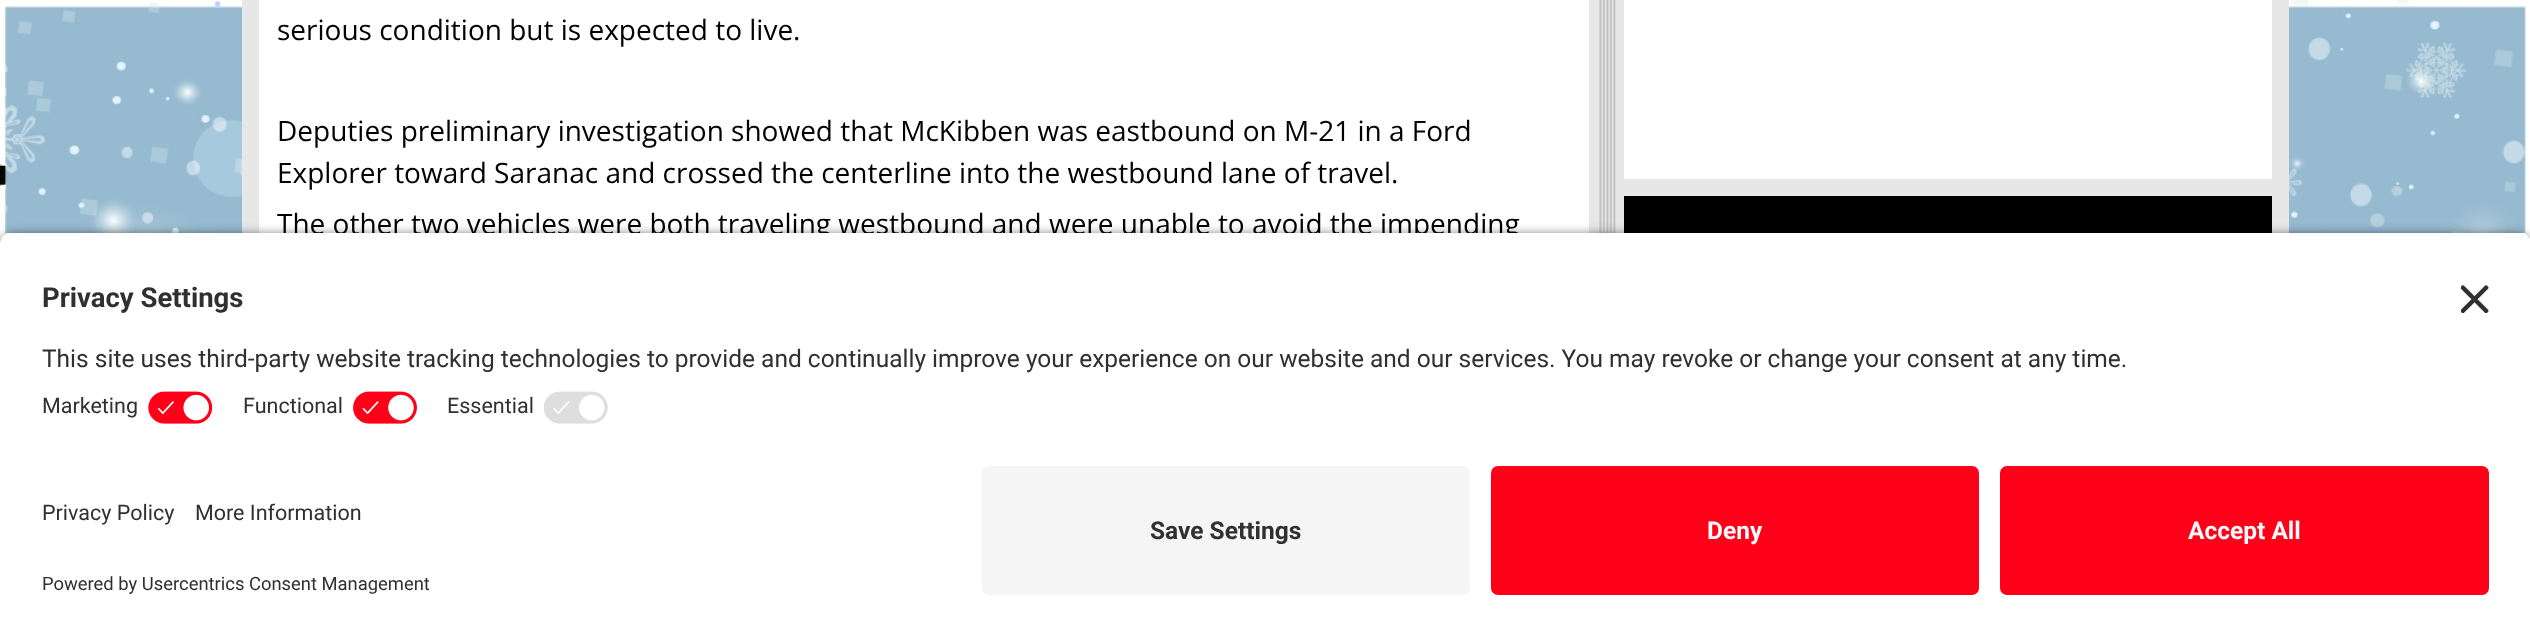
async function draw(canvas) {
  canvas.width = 2530
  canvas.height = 637
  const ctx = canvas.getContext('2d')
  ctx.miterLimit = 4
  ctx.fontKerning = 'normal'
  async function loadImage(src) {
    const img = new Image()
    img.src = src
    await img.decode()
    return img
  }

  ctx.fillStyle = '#fff'
  ctx.fillRect(0, 0, 2530, 637)
  ctx.drawImage(await loadImage('image0.png'), 0, 0, 2530, 245)
  ctx.fillStyle = '#e7e7e7'
  ctx.fillRect(242, 0, 2047, 233)
  ctx.fillStyle = '#fff'
  ctx.fillRect(259, 0, 1330, 233)
  ctx.font = '28px Open Sans'
  ctx.fillStyle = '#000'
  ctx.fillText('serious condition but is expected to live.', 277, 40)
  ctx.fillText('Deputies preliminary investigation showed that McKibben was eastbound on M-21 in a Ford', 277, 141)
  ctx.fillText('Explorer toward Saranac and crossed the centerline into the westbound lane of travel.', 277, 183)
  ctx.fillText('The other two vehicles were both traveling westbound and were unable to avoid the impending', 277, 234)
  ctx.drawImage(await loadImage('image1.png'), 1599, 0, 17, 233)
  ctx.fillStyle = '#fff'
  ctx.fillRect(1624, 0, 648, 179)
  ctx.fillStyle = '#000'
  ctx.fillRect(1624, 196, 648, 37)
  ctx.fillStyle = '#000000cc'
  ctx.filter = 'blur(6px)'
  ctx.beginPath()
  ctx.roundRect(0, 236, 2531, 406, 14)
  ctx.fill()
  ctx.filter = 'none'
  ctx.save()
  ctx.beginPath()
  ctx.moveTo(14, 231)
  ctx.lineTo(2517, 231)
  ctx.bezierCurveTo(2524.5, 231, 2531, 237.5, 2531, 245)
  ctx.lineTo(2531, 452)
  ctx.lineTo(0, 452)
  ctx.lineTo(0, 245)
  ctx.bezierCurveTo(0, 237.5, 6.5, 231, 14, 231)
  ctx.closePath()
  ctx.clip()
  ctx.fillStyle = '#fff'
  ctx.fillRect(0, 233, 2530, 219)
  ctx.fillRect(0, 233, 2530, 149)
  ctx.restore()
  ctx.font = 'bold 27.5px Roboto'
  ctx.fillStyle = '#303030'
  ctx.fillText('Privacy Settings', 42, 307)
  ctx.drawImage(await loadImage('image2.png'), 2461, 285, 28, 28)
  ctx.font = '24.5px Roboto'
  ctx.fillText('This site uses third-party website tracking technologies to provide and continually improve your experience on our website and our services. You may revoke or change your consent at any time.', 42, 367)
  ctx.font = '21.5px Roboto'
  ctx.fillText('Marketing', 42, 413)
  ctx.drawImage(await loadImage('image3.png'), 148, 391, 65, 33)
  ctx.fillText('Functional', 243, 413)
  ctx.drawImage(await loadImage('image4.png'), 353, 391, 64, 33)
  ctx.fillText('Essential', 447, 413)
  ctx.drawImage(await loadImage('image5.png'), 543, 391, 65, 33)
  ctx.fillStyle = '#fff'
  ctx.fillRect(0, 452, 2530, 185)
  ctx.fillStyle = '#303030'
  ctx.fillText('Privacy Policy', 42, 520)
  ctx.fillText('More Information', 195, 520)
  ctx.font = '18.4px Roboto'
  ctx.fillText('Powered by Usercentrics Consent Management', 42, 590)
  ctx.fillStyle = '#f5f5f5'
  ctx.beginPath()
  ctx.roundRect(982, 466, 488, 129, 7)
  ctx.fill()
  ctx.font = 'bold 24.5px Roboto'
  ctx.fillStyle = '#303030'
  ctx.fillText('Save Settings', 1150, 539)
  ctx.fillStyle = '#ff0019'
  ctx.beginPath()
  ctx.roundRect(1491, 466, 488, 129, 7)
  ctx.fill()
  ctx.fillStyle = '#fafafa'
  ctx.fillText('Deny', 1707, 539)
  ctx.fillStyle = '#ff0019'
  ctx.beginPath()
  ctx.roundRect(2000, 466, 489, 129, 7)
  ctx.fill()
  ctx.fillStyle = '#fafafa'
  ctx.fillText('Accept All', 2188, 539)
}

draw(document.querySelector('canvas'))
